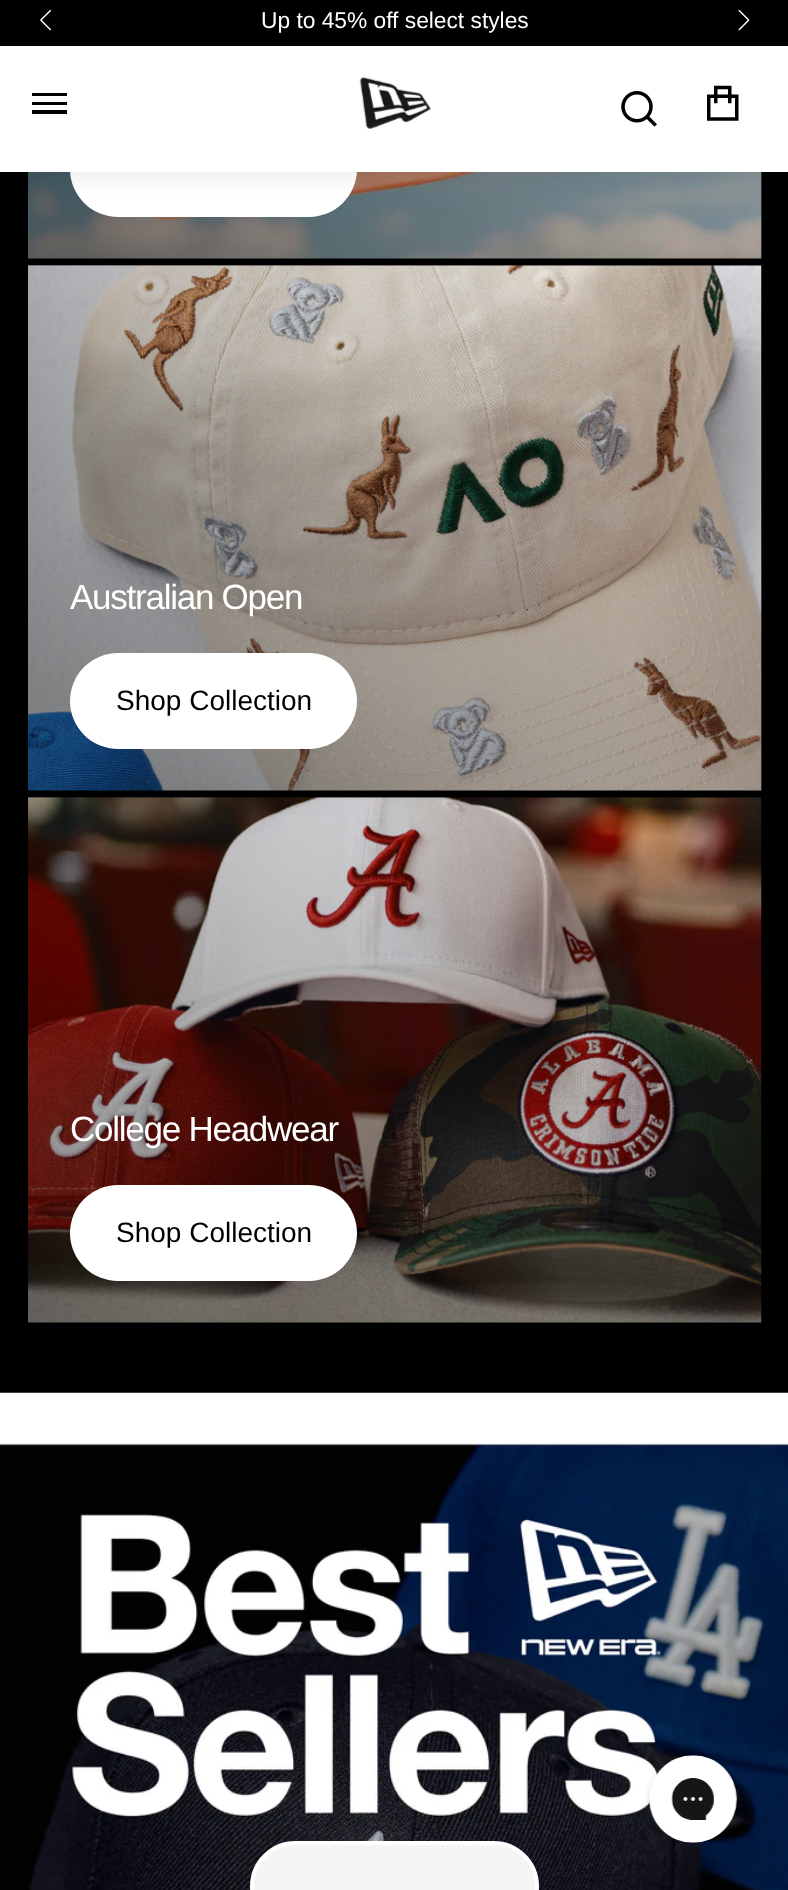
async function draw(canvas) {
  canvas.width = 788
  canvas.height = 1890
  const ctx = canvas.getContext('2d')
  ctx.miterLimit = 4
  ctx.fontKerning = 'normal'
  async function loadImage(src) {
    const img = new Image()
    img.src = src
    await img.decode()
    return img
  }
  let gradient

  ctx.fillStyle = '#000'
  ctx.fillRect(0, 0, 788, 1890)
  ctx.drawImage(await loadImage('image3.png'), 40, 9, 11, 22)
  ctx.drawImage(await loadImage('image4.png'), 738, 9, 12, 22)
  ctx.drawImage(await loadImage('image5.png'), 28, 172, 734, 87)
  gradient = ctx.createLinearGradient(633, -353, 156, 346)
  gradient.addColorStop(0, '#00000000')
  gradient.addColorStop(1, '#00000080')
  ctx.fillStyle = gradient
  ctx.fillRect(28, 172, 733, 87)
  ctx.fillStyle = '#fff'
  ctx.beginPath()
  ctx.roundRect(70, 121, 287, 96, 48)
  ctx.fill()
  ctx.fillStyle = '#0000001a'
  ctx.filter = 'blur(14px)'
  ctx.beginPath()
  ctx.rect(0, 46, 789, 126)
  ctx.fill()
  ctx.filter = 'none'
  ctx.fillStyle = '#fff'
  ctx.fillRect(0, 46, 788, 126)
  ctx.fillStyle = '#000'
  ctx.fillRect(32, 93, 35, 3)
  ctx.fillRect(32, 102, 35, 3)
  ctx.fillRect(32, 110, 35, 4)
  ctx.drawImage(await loadImage('image0.png'), 359, 77, 72, 52)
  ctx.drawImage(await loadImage('image1.png'), 621, 91, 36, 36)
  ctx.drawImage(await loadImage('image2.png'), 707, 85, 32, 36)
  ctx.font = '22.75px Liberation Sans'
  ctx.fillStyle = '#fff'
  ctx.fillText('Up to 45% off select styles', 261, 28)
  ctx.drawImage(await loadImage('image6.png'), 28, 265, 734, 526)
  gradient = ctx.createLinearGradient(633, 179, 156, 878)
  gradient.addColorStop(0, '#00000000')
  gradient.addColorStop(1, '#00000080')
  ctx.fillStyle = gradient
  ctx.fillRect(28, 266, 733, 525)
  ctx.letterSpacing = '-1.25px'
  ctx.font = '35px Liberation Sans'
  ctx.fillStyle = '#fff'
  ctx.fillText('Australian Open', 70, 609)
  ctx.beginPath()
  ctx.roundRect(70, 653, 287, 96, 48)
  ctx.fill()
  ctx.letterSpacing = '0px'
  ctx.font = '28px Liberation Sans'
  ctx.fillStyle = '#000'
  ctx.fillText('Shop Collection', 116, 710)
  ctx.drawImage(await loadImage('image7.png'), 28, 797, 734, 526)
  gradient = ctx.createLinearGradient(633, 711, 156, 1410)
  gradient.addColorStop(0, '#00000000')
  gradient.addColorStop(1, '#00000080')
  ctx.fillStyle = gradient
  ctx.fillRect(28, 798, 733, 525)
  ctx.letterSpacing = '-1.25px'
  ctx.font = '35px Liberation Sans'
  ctx.fillStyle = '#fff'
  ctx.fillText('College Headwear', 70, 1141)
  ctx.beginPath()
  ctx.roundRect(70, 1185, 287, 96, 48)
  ctx.fill()
  ctx.letterSpacing = '0px'
  ctx.font = '28px Liberation Sans'
  ctx.fillStyle = '#000'
  ctx.fillText('Shop Collection', 116, 1242)
  ctx.drawImage(await loadImage('image8.png'), 0, 1392, 788, 498)
  ctx.fillStyle = '#f5f5f5'
  ctx.beginPath()
  ctx.roundRect(252, 1843, 285, 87, 43.5)
  ctx.fill()
  ctx.strokeStyle = '#fff'
  ctx.lineWidth = 4
  ctx.stroke()
  ctx.drawImage(await loadImage('image9.png'), 646, 1755, 91, 88)
}

draw(document.querySelector('canvas'))
